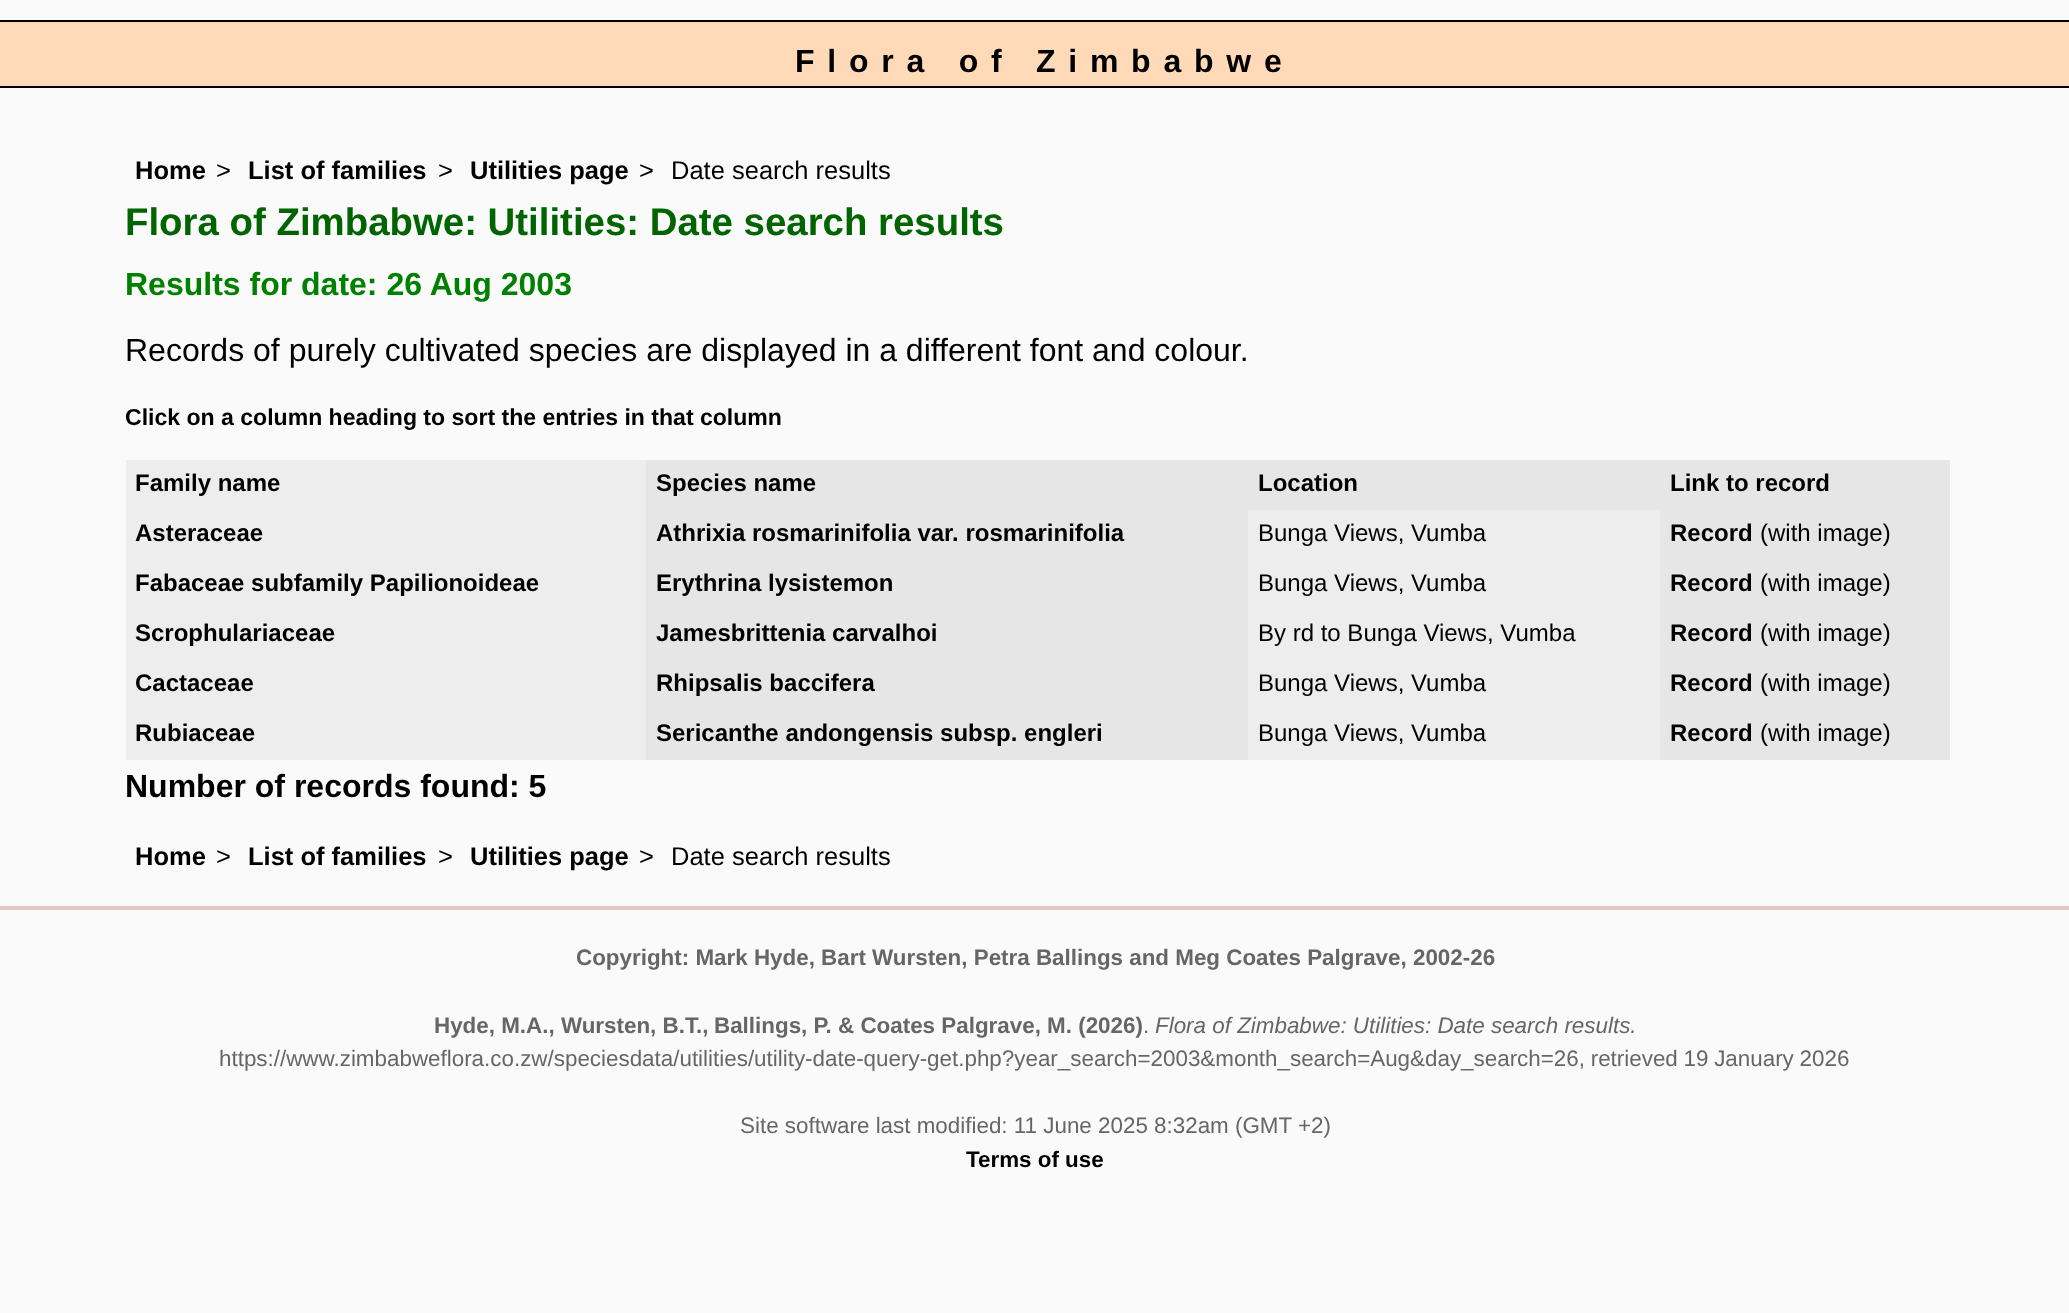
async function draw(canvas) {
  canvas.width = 2069
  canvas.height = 1313
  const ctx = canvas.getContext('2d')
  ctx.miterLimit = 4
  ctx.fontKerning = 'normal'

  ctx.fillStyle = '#fafafa'
  ctx.fillRect(0, 0, 2069, 1313)
  ctx.fillStyle = '#ffdab9'
  ctx.fillRect(0, 22, 2069, 64)
  ctx.fillStyle = '#000'
  ctx.fillRect(0, 20, 2069, 2)
  ctx.fillRect(0, 86, 2069, 2)
  ctx.letterSpacing = '12.75px'
  ctx.font = 'bold 32px Liberation Sans'
  ctx.fillText('Flora of Zimbabwe', 795, 72)
  ctx.letterSpacing = '0px'
  ctx.font = 'bold 25.5px Liberation Sans'
  ctx.fillText('Home', 135, 179)
  ctx.font = '25.5px Liberation Sans'
  ctx.fillText('>', 216, 179)
  ctx.font = 'bold 25.5px Liberation Sans'
  ctx.fillText('List of families', 248, 179)
  ctx.font = '25.5px Liberation Sans'
  ctx.fillText('>', 438, 179)
  ctx.font = 'bold 25.5px Liberation Sans'
  ctx.fillText('Utilities page', 470, 179)
  ctx.font = '25.5px Liberation Sans'
  ctx.fillText('>', 639, 179)
  ctx.fillText('Date search results', 671, 179)
  ctx.font = 'bold 38.4px Liberation Sans'
  ctx.fillStyle = '#006400'
  ctx.fillText('Flora of Zimbabwe: Utilities: Date search results', 125, 235)
  ctx.font = 'bold 32px Liberation Sans'
  ctx.fillStyle = '#008000'
  ctx.fillText('Results for date: 26 Aug 2003', 125, 295)
  ctx.font = '32px Liberation Sans'
  ctx.fillStyle = '#000'
  ctx.fillText('Records of purely cultivated species are displayed in a different font and colour.', 125, 361)
  ctx.font = 'bold 23.05px Liberation Sans'
  ctx.fillText('Click on a column heading to sort the entries in that column', 125, 425)
  ctx.fillStyle = '#e6e6e6'
  ctx.fillRect(646, 460, 1304, 300)
  ctx.fillStyle = '#eeeded'
  ctx.fillRect(126, 460, 520, 300)
  ctx.font = 'bold 24px Liberation Sans'
  ctx.fillStyle = '#000'
  ctx.fillText('Family name', 135, 491)
  ctx.fillText('Species name', 656, 491)
  ctx.fillText('Location', 1258, 491)
  ctx.fillText('Link to record', 1670, 491)
  ctx.fillText('Asteraceae', 135, 541)
  ctx.fillText('Athrixia rosmarinifolia var. rosmarinifolia', 656, 541)
  ctx.fillStyle = '#eeeded'
  ctx.fillRect(1248, 510, 412, 250)
  ctx.font = '24px Liberation Sans'
  ctx.fillStyle = '#000'
  ctx.fillText('Bunga Views, Vumba', 1258, 541)
  ctx.font = 'bold 24px Liberation Sans'
  ctx.fillText('Record', 1670, 541)
  ctx.font = '24px Liberation Sans'
  ctx.fillText('(with image)', 1760, 541)
  ctx.font = 'bold 24px Liberation Sans'
  ctx.fillText('Fabaceae subfamily Papilionoideae', 135, 591)
  ctx.fillText('Erythrina lysistemon', 656, 591)
  ctx.font = '24px Liberation Sans'
  ctx.fillText('Bunga Views, Vumba', 1258, 591)
  ctx.font = 'bold 24px Liberation Sans'
  ctx.fillText('Record', 1670, 591)
  ctx.font = '24px Liberation Sans'
  ctx.fillText('(with image)', 1760, 591)
  ctx.font = 'bold 24px Liberation Sans'
  ctx.fillText('Scrophulariaceae', 135, 641)
  ctx.fillText('Jamesbrittenia carvalhoi', 656, 641)
  ctx.font = '24px Liberation Sans'
  ctx.fillText('By rd to Bunga Views, Vumba', 1258, 641)
  ctx.font = 'bold 24px Liberation Sans'
  ctx.fillText('Record', 1670, 641)
  ctx.font = '24px Liberation Sans'
  ctx.fillText('(with image)', 1760, 641)
  ctx.font = 'bold 24px Liberation Sans'
  ctx.fillText('Cactaceae', 135, 691)
  ctx.fillText('Rhipsalis baccifera', 656, 691)
  ctx.font = '24px Liberation Sans'
  ctx.fillText('Bunga Views, Vumba', 1258, 691)
  ctx.font = 'bold 24px Liberation Sans'
  ctx.fillText('Record', 1670, 691)
  ctx.font = '24px Liberation Sans'
  ctx.fillText('(with image)', 1760, 691)
  ctx.font = 'bold 24px Liberation Sans'
  ctx.fillText('Rubiaceae', 135, 741)
  ctx.fillText('Sericanthe andongensis subsp. engleri', 656, 741)
  ctx.font = '24px Liberation Sans'
  ctx.fillText('Bunga Views, Vumba', 1258, 741)
  ctx.font = 'bold 24px Liberation Sans'
  ctx.fillText('Record', 1670, 741)
  ctx.font = '24px Liberation Sans'
  ctx.fillText('(with image)', 1760, 741)
  ctx.font = 'bold 32px Liberation Sans'
  ctx.fillText('Number of records found: 5', 125, 797)
  ctx.font = 'bold 25.5px Liberation Sans'
  ctx.fillText('Home', 135, 865)
  ctx.font = '25.5px Liberation Sans'
  ctx.fillText('>', 216, 865)
  ctx.font = 'bold 25.5px Liberation Sans'
  ctx.fillText('List of families', 248, 865)
  ctx.font = '25.5px Liberation Sans'
  ctx.fillText('>', 438, 865)
  ctx.font = 'bold 25.5px Liberation Sans'
  ctx.fillText('Utilities page', 470, 865)
  ctx.font = '25.5px Liberation Sans'
  ctx.fillText('>', 639, 865)
  ctx.fillText('Date search results', 671, 865)
  ctx.fillStyle = '#e5c6c6'
  ctx.fillRect(0, 906, 2069, 4)
  ctx.font = 'bold 22.4px Liberation Sans'
  ctx.fillStyle = '#666'
  ctx.fillText('Copyright: Mark Hyde, Bart Wursten, Petra Ballings and Meg Coates Palgrave, 2002-26', 576, 965)
  ctx.fillText('Hyde, M.A., Wursten, B.T.,', 434, 1033)
  ctx.fillText('Ballings, P. & Coates Palgrave, M. (2026)', 714, 1033)
  ctx.font = '22.4px Liberation Sans'
  ctx.fillText('.', 1143, 1033)
  ctx.font = 'italic 22.4px Liberation Sans'
  ctx.fillText('Flora of Zimbabwe: Utilities: Date search results.', 1155, 1033)
  ctx.wordSpacing = '-0.5px'
  ctx.font = '22.4px Liberation Sans'
  ctx.fillText('https://www.zimbabweflora.co.zw/speciesdata/utilities/utility-date-query-get.php?year_search=2003&month_search=Aug&day_search=26, retrieved 19 January 2026', 219, 1066)
  ctx.wordSpacing = '0px'
  ctx.fillText('Site software last modified: 11 June 2025 8:32am (GMT +2)', 740, 1133)
  ctx.font = 'bold 22.4px Liberation Sans'
  ctx.fillStyle = '#000'
  ctx.fillText('Terms of use', 966, 1167)
}

draw(document.querySelector('canvas'))
